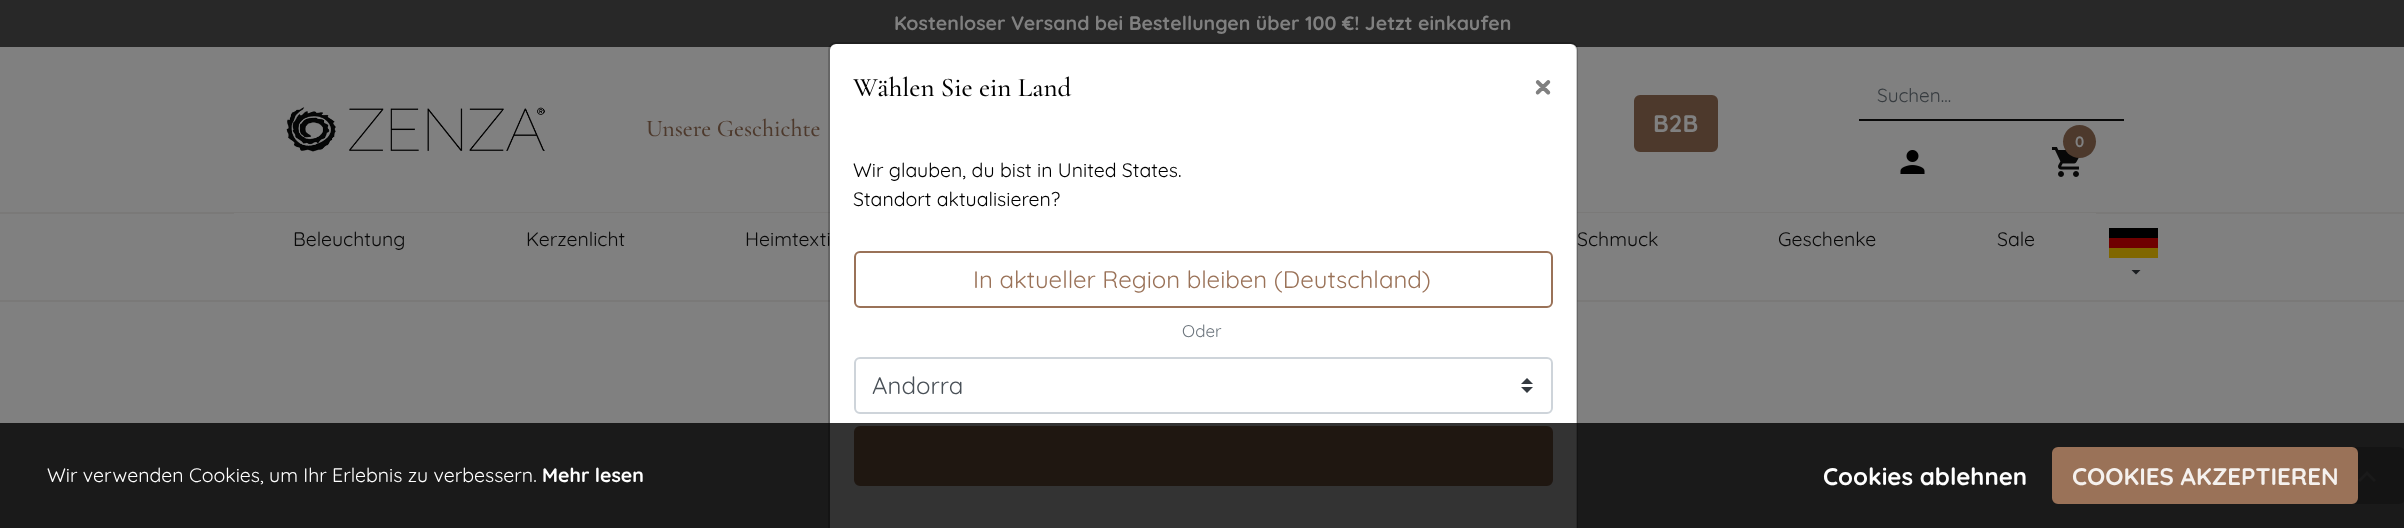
async function draw(canvas) {
  canvas.width = 2404
  canvas.height = 528
  const ctx = canvas.getContext('2d')
  ctx.miterLimit = 4
  ctx.fontKerning = 'normal'
  async function loadImage(src) {
    const img = new Image()
    img.src = src
    await img.decode()
    return img
  }

  ctx.fillStyle = '#808080'
  ctx.fillRect(0, 0, 2404, 528)
  ctx.fillStyle = '#282828'
  ctx.fillRect(0, 0, 2404, 47)
  ctx.font = 'bold 19.5px Quicksand'
  ctx.fillStyle = '#808080'
  ctx.fillText('Kostenloser Versand bei Bestellungen über 100 €! Jetzt einkaufen', 894, 30)
  ctx.fillStyle = '#7a7978'
  ctx.fillRect(0, 212, 2404, 2)
  ctx.fillRect(0, 300, 2404, 2)
  ctx.fillStyle = '#808080'
  ctx.fillRect(234, 213, 1862, 1)
  ctx.fillStyle = '#fff'
  ctx.beginPath()
  ctx.roundRect(830, 44, 747, 484, [6, 6, 0, 0])
  ctx.fill()
  ctx.font = '19.5px Quicksand'
  ctx.fillStyle = '#090909'
  ctx.fillText('Heimtexti', 745, 246)
  ctx.fillText('Schmuck', 1577, 246)
  ctx.beginPath()
  ctx.roundRect(829, 43, 748, 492, 7)
  ctx.strokeStyle = '#00000033'
  ctx.lineWidth = 2
  ctx.stroke()
  ctx.font = '500 27px Cormorant Garamond'
  ctx.fillStyle = '#000'
  ctx.fillText('Wählen Sie ein Land', 853, 96)
  ctx.font = 'bold 36px Quicksand'
  ctx.fillStyle = '#808080'
  ctx.fillText('×', 1534, 99)
  ctx.font = '19.5px Quicksand'
  ctx.fillStyle = '#000'
  ctx.fillText('Wir glauben, du bist in United States.', 853, 177)
  ctx.fillText('Standort aktualisieren?', 853, 206)
  ctx.beginPath()
  ctx.roundRect(855, 252, 697, 55, 5)
  ctx.strokeStyle = '#9a7258'
  ctx.stroke()
  ctx.font = '24px Quicksand'
  ctx.fillStyle = '#9a7258'
  ctx.fillText('In aktueller Region bleiben (Deutschland)', 973, 288)
  ctx.font = '17px Quicksand'
  ctx.fillStyle = '#6c757d'
  ctx.fillText('Oder', 1182, 337)
  ctx.drawImage(await loadImage('image0.png'), 1521, 378, 12, 15)
  ctx.beginPath()
  ctx.roundRect(855, 358, 697, 55, 5)
  ctx.strokeStyle = '#ced4da'
  ctx.stroke()
  ctx.font = '24px Quicksand'
  ctx.fillStyle = '#495057'
  ctx.fillText('Andorra', 872, 394)
  ctx.fillStyle = '#9a7258'
  ctx.beginPath()
  ctx.roundRect(855, 427, 697, 58, 5)
  ctx.fill()
  ctx.strokeStyle = '#9a7258'
  ctx.stroke()
  ctx.drawImage(await loadImage('image1.png'), 286, 107, 259, 45)
  ctx.font = '500 24px Cormorant Garamond'
  ctx.fillStyle = '#4d392c'
  ctx.fillText('Unsere Geschichte', 646, 136)
  ctx.beginPath()
  ctx.roundRect(1635, 96, 82, 55, 5)
  ctx.fill()
  ctx.strokeStyle = '#4d392c'
  ctx.stroke()
  ctx.font = 'bold 24px Quicksand'
  ctx.fillStyle = '#808080'
  ctx.fillText('B2B', 1653, 132)
  ctx.fillStyle = '#090909'
  ctx.fillRect(1859, 119, 265, 2)
  ctx.font = '19px Quicksand'
  ctx.fillStyle = '#363b3f'
  ctx.fillText('Suchen...', 1877, 102)
  ctx.drawImage(await loadImage('image2.png'), 2051, 147, 28, 30)
  ctx.fillStyle = '#4d392c'
  ctx.beginPath()
  ctx.arc(2079.5, 141.5, 16.5, 0, 2 * Math.PI)
  ctx.fill()
  ctx.font = 'bold 15px Quicksand'
  ctx.fillStyle = '#808080'
  ctx.fillText('0', 2075, 147)
  ctx.drawImage(await loadImage('image3.png'), 1900, 150, 25, 24)
  ctx.font = '19.5px Quicksand'
  ctx.fillStyle = '#090909'
  ctx.fillText('Beleuchtung', 293, 246)
  ctx.fillText('Kerzenlicht', 526, 246)
  ctx.fillText('Geschenke', 1778, 246)
  ctx.fillText('Sale', 1997, 246)
  ctx.fillStyle = '#000'
  ctx.fillRect(2109, 228, 49, 10)
  ctx.fillStyle = '#6f0000'
  ctx.fillRect(2109, 238, 49, 10)
  ctx.fillStyle = '#806700'
  ctx.fillRect(2109, 248, 49, 10)
  ctx.fillStyle = '#1a1d20'
  ctx.beginPath()
  ctx.moveTo(2131.5, 270)
  ctx.lineTo(2140.5, 270)
  ctx.lineTo(2136, 274.5)
  ctx.closePath()
  ctx.fill()
  ctx.fillStyle = '#5050508f'
  ctx.beginPath()
  ctx.roundRect(2330, 447, 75, 57, 6)
  ctx.fill()
  ctx.fillStyle = '#808080'
  ctx.beginPath()
  ctx.moveTo(2360, 482)
  ctx.lineTo(2358, 480)
  ctx.lineTo(2367, 471)
  ctx.lineTo(2376, 480)
  ctx.lineTo(2374, 482)
  ctx.lineTo(2367, 475)
  ctx.closePath()
  ctx.fill()
  ctx.fillStyle = '#000000cc'
  ctx.fillRect(0, 423, 2404, 105)
  ctx.fillStyle = '#fff'
  ctx.fillText('Wir verwenden Cookies, um Ihr Erlebnis zu verbessern.', 47, 482)
  ctx.font = 'bold 19.5px Quicksand'
  ctx.fillText('Mehr lesen', 542, 482)
  ctx.font = 'bold 24px Quicksand'
  ctx.fillText('Cookies ablehnen', 1823, 485)
  ctx.fillStyle = '#9a7258'
  ctx.beginPath()
  ctx.roundRect(2053, 448, 304, 55, 5)
  ctx.fill()
  ctx.strokeStyle = '#9a7258'
  ctx.stroke()
  ctx.fillStyle = '#f5f1ee'
  ctx.fillText('COOKIES AKZEPTIEREN', 2072, 485)
}

draw(document.querySelector('canvas'))
